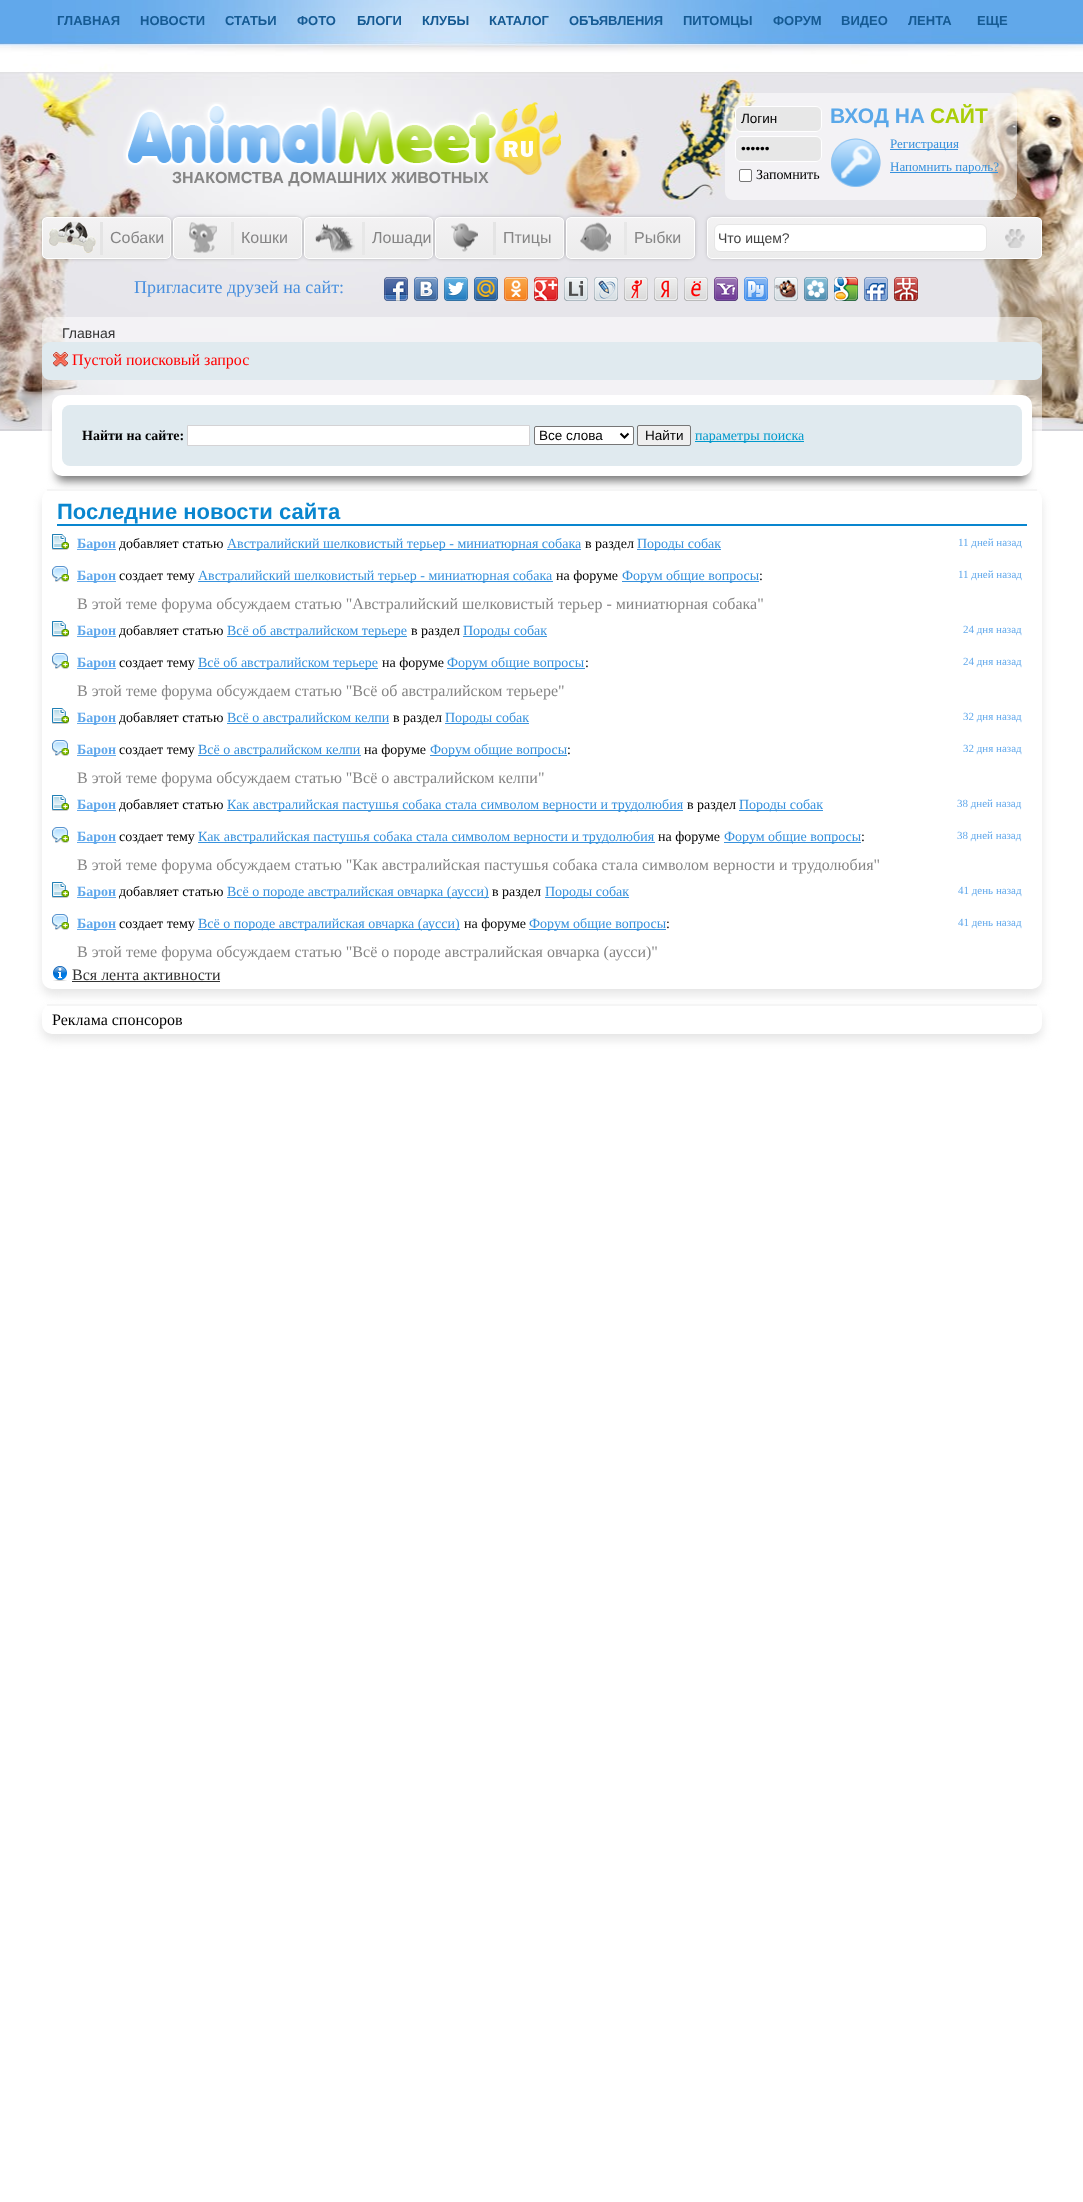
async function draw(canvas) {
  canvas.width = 1083
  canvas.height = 2202
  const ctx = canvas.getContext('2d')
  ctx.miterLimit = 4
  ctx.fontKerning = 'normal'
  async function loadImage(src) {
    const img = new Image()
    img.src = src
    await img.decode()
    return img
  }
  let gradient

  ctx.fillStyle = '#fff'
  ctx.fillRect(0, 0, 1083, 2202)
  ctx.drawImage(await loadImage('image0.png'), 0, 43, 1083, 388)
  ctx.fillStyle = '#61a8eb'
  ctx.fillRect(0, 0, 52, 43)
  ctx.drawImage(await loadImage('image1.png'), 52, 0, 1031, 43)
  ctx.font = 'bold 13px Liberation Sans'
  ctx.fillStyle = '#155a93'
  ctx.fillText('ГЛАВНАЯ', 57, 25)
  ctx.fillText('НОВОСТИ', 140, 25)
  ctx.fillText('СТАТЬИ', 225, 25)
  ctx.fillText('ФОТО', 297, 25)
  ctx.fillText('БЛОГИ', 357, 25)
  ctx.fillText('КЛУБЫ', 422, 25)
  ctx.fillText('КАТАЛОГ', 489, 25)
  ctx.fillText('ОБЪЯВЛЕНИЯ', 569, 25)
  ctx.fillText('ПИТОМЦЫ', 683, 25)
  ctx.fillText('ФОРУМ', 773, 25)
  ctx.fillText('ВИДЕО', 841, 25)
  ctx.fillText('ЛЕНТА', 908, 25)
  ctx.fillText('ЕЩЕ', 977, 25)
  ctx.drawImage(await loadImage('image2.png'), 123, 102, 438, 73)
  ctx.font = 'bold 16px Liberation Sans'
  ctx.fillStyle = '#858585'
  ctx.fillText('ЗНАКОМСТВА ДОМАШНИХ ЖИВОТНЫХ', 172, 183)
  ctx.drawImage(await loadImage('image3.png'), 725, 93, 292, 107)
  ctx.fillStyle = '#e7e7e7'
  ctx.beginPath()
  ctx.roundRect(735.5, 106.5, 86, 25, 5.5)
  ctx.fill()
  ctx.strokeStyle = '#fff'
  ctx.stroke()
  ctx.font = '13.5px Liberation Sans'
  ctx.fillStyle = '#000'
  ctx.fillText('Логин', 741, 123)
  ctx.fillStyle = '#e7e7e7'
  ctx.beginPath()
  ctx.roundRect(735.5, 136.5, 86, 25, 5.5)
  ctx.fill()
  ctx.stroke()
  ctx.fillStyle = '#000'
  ctx.fillText('••••••', 741, 153)
  ctx.fillStyle = '#fff'
  ctx.beginPath()
  ctx.roundRect(739.5, 169.5, 12, 12, 1.5)
  ctx.fill()
  ctx.strokeStyle = '#767676'
  ctx.stroke()
  ctx.font = '14px Liberation Serif'
  ctx.fillStyle = '#000'
  ctx.fillText('Запомнить', 756, 179)
  ctx.font = 'bold 21px Liberation Sans'
  ctx.fillStyle = '#5aa8e9'
  ctx.fillText('ВХОД НА', 830, 123)
  ctx.fillStyle = '#abce09'
  ctx.fillText('САЙТ', 930, 123)
  ctx.drawImage(await loadImage('image4.png'), 831, 138, 50, 49)
  ctx.fillStyle = '#3791dc'
  ctx.fillRect(890, 149, 68, 1)
  ctx.font = '13px Liberation Serif'
  ctx.fillText('Регистрация', 890, 148)
  ctx.fillRect(890, 172, 108, 1)
  ctx.fillText('Напомнить пароль?', 890, 171)
  ctx.fillStyle = '#00000099'
  ctx.filter = 'blur(2.5px)'
  ctx.beginPath()
  ctx.roundRect(44, 219, 125, 38, 3)
  ctx.fill()
  ctx.filter = 'none'
  ctx.save()
  ctx.beginPath()
  ctx.roundRect(42, 217, 129, 42, 5)
  ctx.clip()
  gradient = ctx.createLinearGradient(107, 218, 107, 258)
  gradient.addColorStop(0, '#f3f2f3')
  gradient.addColorStop(1, '#ececec')
  ctx.fillStyle = gradient
  ctx.fillRect(42, 218, 129, 40)
  ctx.restore()
  ctx.beginPath()
  ctx.roundRect(42.5, 217.5, 128, 41, 4.5)
  ctx.strokeStyle = '#fff'
  ctx.stroke()
  ctx.drawImage(await loadImage('image5.png'), 48, 221, 48, 32)
  ctx.fillStyle = '#e4e4e4'
  ctx.fillRect(100, 222, 3, 33)
  ctx.font = '16px Liberation Sans'
  ctx.fillStyle = '#858585'
  ctx.fillText('Собаки', 110, 243)
  ctx.fillStyle = '#00000099'
  ctx.filter = 'blur(2.5px)'
  ctx.beginPath()
  ctx.roundRect(175, 219, 125, 38, 3)
  ctx.fill()
  ctx.filter = 'none'
  ctx.save()
  ctx.beginPath()
  ctx.roundRect(173, 217, 129, 42, 5)
  ctx.clip()
  gradient = ctx.createLinearGradient(238, 218, 238, 258)
  gradient.addColorStop(0, '#f3f2f3')
  gradient.addColorStop(1, '#ececec')
  ctx.fillStyle = gradient
  ctx.fillRect(173, 218, 129, 40)
  ctx.restore()
  ctx.beginPath()
  ctx.roundRect(173.5, 217.5, 128, 41, 4.5)
  ctx.stroke()
  ctx.drawImage(await loadImage('image6.png'), 189, 222, 28, 31)
  ctx.fillStyle = '#e7e7e7'
  ctx.fillRect(231, 222, 3, 33)
  ctx.fillStyle = '#858585'
  ctx.fillText('Кошки', 241, 243)
  ctx.fillStyle = '#00000099'
  ctx.filter = 'blur(2.5px)'
  ctx.beginPath()
  ctx.roundRect(306, 219, 125, 38, 3)
  ctx.fill()
  ctx.filter = 'none'
  ctx.save()
  ctx.beginPath()
  ctx.roundRect(304, 217, 129, 42, 5)
  ctx.clip()
  gradient = ctx.createLinearGradient(369, 218, 369, 258)
  gradient.addColorStop(0, '#f3f2f3')
  gradient.addColorStop(1, '#ececec')
  ctx.fillStyle = gradient
  ctx.fillRect(304, 218, 129, 40)
  ctx.restore()
  ctx.beginPath()
  ctx.roundRect(304.5, 217.5, 128, 41, 4.5)
  ctx.stroke()
  ctx.drawImage(await loadImage('image7.png'), 315, 223, 40, 30)
  ctx.fillStyle = '#e7e7e7'
  ctx.fillRect(362, 222, 3, 33)
  ctx.fillStyle = '#858585'
  ctx.fillText('Лошади', 372, 243)
  ctx.fillStyle = '#00000099'
  ctx.filter = 'blur(2.5px)'
  ctx.beginPath()
  ctx.roundRect(437, 219, 125, 38, 3)
  ctx.fill()
  ctx.filter = 'none'
  ctx.save()
  ctx.beginPath()
  ctx.roundRect(435, 217, 129, 42, 5)
  ctx.clip()
  gradient = ctx.createLinearGradient(500, 218, 500, 258)
  gradient.addColorStop(0, '#f3f2f3')
  gradient.addColorStop(1, '#ececec')
  ctx.fillStyle = gradient
  ctx.fillRect(435, 218, 129, 40)
  ctx.restore()
  ctx.beginPath()
  ctx.roundRect(435.5, 217.5, 128, 41, 4.5)
  ctx.stroke()
  ctx.drawImage(await loadImage('image8.png'), 451, 223, 27, 29)
  ctx.fillStyle = '#e4e4e4'
  ctx.fillRect(493, 222, 3, 33)
  ctx.fillStyle = '#858585'
  ctx.fillText('Птицы', 503, 243)
  ctx.fillStyle = '#00000099'
  ctx.filter = 'blur(2.5px)'
  ctx.beginPath()
  ctx.roundRect(568, 219, 125, 38, 3)
  ctx.fill()
  ctx.filter = 'none'
  ctx.save()
  ctx.beginPath()
  ctx.roundRect(566, 217, 129, 42, 5)
  ctx.clip()
  gradient = ctx.createLinearGradient(631, 218, 631, 258)
  gradient.addColorStop(0, '#f3f2f3')
  gradient.addColorStop(1, '#ececec')
  ctx.fillStyle = gradient
  ctx.fillRect(566, 218, 129, 40)
  ctx.restore()
  ctx.beginPath()
  ctx.roundRect(566.5, 217.5, 128, 41, 4.5)
  ctx.stroke()
  ctx.drawImage(await loadImage('image9.png'), 580, 222, 31, 30)
  ctx.fillStyle = '#e7e7e7'
  ctx.fillRect(624, 222, 3, 33)
  ctx.fillStyle = '#858585'
  ctx.fillText('Рыбки', 634, 243)
  ctx.fillStyle = '#00000080'
  ctx.filter = 'blur(2.5px)'
  ctx.beginPath()
  ctx.roundRect(709, 219, 331, 38, 3)
  ctx.fill()
  ctx.filter = 'none'
  ctx.save()
  ctx.beginPath()
  ctx.roundRect(707, 217, 335, 42, 5)
  ctx.clip()
  gradient = ctx.createLinearGradient(875, 218, 875, 258)
  gradient.addColorStop(0, '#f3f2f3')
  gradient.addColorStop(1, '#ececec')
  ctx.fillStyle = gradient
  ctx.fillRect(707, 218, 335, 40)
  ctx.restore()
  ctx.beginPath()
  ctx.roundRect(707.5, 217.5, 334, 41, 4.5)
  ctx.stroke()
  ctx.fillStyle = '#fff'
  ctx.beginPath()
  ctx.roundRect(714.5, 224.5, 272, 27, 5.5)
  ctx.fill()
  ctx.strokeStyle = '#e6e6e6'
  ctx.stroke()
  ctx.font = '14px Liberation Sans'
  ctx.fillStyle = '#444'
  ctx.fillText('Что ищем?', 718, 243)
  ctx.drawImage(await loadImage('image10.png'), 1005, 229, 20, 19)
  ctx.font = '18px Liberation Serif'
  ctx.fillStyle = '#498fde'
  ctx.fillText('Пригласите друзей на сайт:', 134, 293)
  ctx.drawImage(await loadImage('image11.png'), 384, 277, 24, 24)
  ctx.drawImage(await loadImage('image12.png'), 414, 277, 24, 24)
  ctx.drawImage(await loadImage('image13.png'), 444, 277, 24, 24)
  ctx.drawImage(await loadImage('image14.png'), 474, 277, 24, 24)
  ctx.drawImage(await loadImage('image15.png'), 504, 277, 24, 24)
  ctx.drawImage(await loadImage('image16.png'), 534, 277, 24, 24)
  ctx.drawImage(await loadImage('image17.png'), 564, 277, 24, 24)
  ctx.drawImage(await loadImage('image18.png'), 594, 277, 24, 24)
  ctx.drawImage(await loadImage('image19.png'), 624, 277, 24, 24)
  ctx.drawImage(await loadImage('image20.png'), 654, 277, 24, 24)
  ctx.drawImage(await loadImage('image21.png'), 684, 277, 24, 24)
  ctx.drawImage(await loadImage('image22.png'), 714, 277, 24, 24)
  ctx.drawImage(await loadImage('image23.png'), 744, 277, 24, 24)
  ctx.drawImage(await loadImage('image24.png'), 774, 277, 24, 24)
  ctx.drawImage(await loadImage('image25.png'), 804, 277, 24, 24)
  ctx.drawImage(await loadImage('image26.png'), 834, 277, 24, 24)
  ctx.drawImage(await loadImage('image27.png'), 864, 277, 24, 24)
  ctx.drawImage(await loadImage('image28.png'), 894, 277, 24, 24)
  ctx.drawImage(await loadImage('image29.png'), 42, 317, 1000, 114)
  ctx.font = '14px Liberation Sans'
  ctx.fillStyle = '#323232'
  ctx.fillText('Главная', 62, 338)
  ctx.fillStyle = '#e0eaef'
  ctx.beginPath()
  ctx.roundRect(42, 342, 1000, 38, 8)
  ctx.fill()
  ctx.drawImage(await loadImage('image30.png'), 53, 352, 15, 15)
  ctx.font = '16px Liberation Serif'
  ctx.fillStyle = '#f00'
  ctx.fillText('Пустой поисковый запрос', 72, 365)
  ctx.fillStyle = '#777'
  ctx.filter = 'blur(5px)'
  ctx.beginPath()
  ctx.roundRect(57, 410, 970, 71, 5)
  ctx.fill()
  ctx.filter = 'none'
  ctx.fillStyle = '#fff'
  ctx.beginPath()
  ctx.roundRect(52, 395, 980, 81, 10)
  ctx.fill()
  ctx.fillStyle = '#e0eaef'
  ctx.beginPath()
  ctx.roundRect(62, 405, 960, 61, 8)
  ctx.fill()
  ctx.font = 'bold 14px Liberation Serif'
  ctx.fillStyle = '#000'
  ctx.fillText('Найти на сайте:', 82, 440)
  ctx.fillStyle = '#fff'
  ctx.beginPath()
  ctx.rect(187.5, 425.5, 342, 20)
  ctx.fill()
  ctx.strokeStyle = '#d4d3d5'
  ctx.stroke()
  ctx.beginPath()
  ctx.roundRect(534.5, 426.5, 99, 18, 1.5)
  ctx.fill()
  ctx.strokeStyle = '#767676'
  ctx.stroke()
  ctx.beginPath()
  ctx.moveTo(620.5, 433.5)
  ctx.lineTo(624.5, 437.5)
  ctx.lineTo(628.5, 433.5)
  ctx.strokeStyle = '#000'
  ctx.lineWidth = 2
  ctx.stroke()
  ctx.font = '13.5px Liberation Sans'
  ctx.fillStyle = '#000'
  ctx.fillText('Все слова', 539, 440)
  ctx.fillStyle = '#efefef'
  ctx.beginPath()
  ctx.roundRect(637.5, 425.5, 53, 20, 1.5)
  ctx.fill()
  ctx.strokeStyle = '#767676'
  ctx.lineWidth = 1
  ctx.stroke()
  ctx.fillStyle = '#000'
  ctx.fillText('Найти', 645, 440)
  ctx.fillStyle = '#09c'
  ctx.fillRect(695, 441, 109, 1)
  ctx.font = '14px Liberation Serif'
  ctx.fillText('параметры поиска', 695, 440)
  ctx.fillStyle = '#e6e6e6'
  ctx.filter = 'blur(5px)'
  ctx.beginPath()
  ctx.roundRect(42, 495, 1000, 500, 10)
  ctx.fill()
  ctx.filter = 'none'
  ctx.fillStyle = '#fff'
  ctx.beginPath()
  ctx.roundRect(42, 489, 1000, 500, 10)
  ctx.fill()
  ctx.fillStyle = '#f5f5f5'
  ctx.fillRect(47, 489, 990, 2)
  ctx.fillStyle = '#0986cf'
  ctx.fillRect(57, 524, 970, 2)
  ctx.font = 'bold 22px Liberation Sans'
  ctx.fillText('Последние новости сайта', 57, 519)
  ctx.drawImage(await loadImage('image31.png'), 52, 534, 17, 16)
  ctx.fillStyle = '#61a8eb'
  ctx.fillRect(77, 549, 39, 1)
  ctx.font = 'bold 14px Liberation Serif'
  ctx.fillText('Барон', 77, 548)
  ctx.font = '14px Liberation Serif'
  ctx.fillStyle = '#000'
  ctx.fillText('добавляет статью', 119, 548)
  ctx.fillStyle = '#3791dc'
  ctx.fillRect(227, 549, 354, 1)
  ctx.fillText('Австралийский шелковистый терьер - миниатюрная собака', 227, 548)
  ctx.fillStyle = '#000'
  ctx.fillText('в раздел', 585, 548)
  ctx.fillStyle = '#3791dc'
  ctx.fillRect(637, 549, 84, 1)
  ctx.fillText('Породы собак', 637, 548)
  ctx.font = '11px Liberation Serif'
  ctx.fillStyle = '#61a8eb'
  ctx.fillText('11 дней назад', 958, 546)
  ctx.drawImage(await loadImage('image32.png'), 52, 566, 17, 16)
  ctx.fillRect(77, 581, 39, 1)
  ctx.font = 'bold 14px Liberation Serif'
  ctx.fillText('Барон', 77, 580)
  ctx.font = '14px Liberation Serif'
  ctx.fillStyle = '#000'
  ctx.fillText('создает тему', 119, 580)
  ctx.fillStyle = '#3791dc'
  ctx.fillRect(198, 581, 355, 1)
  ctx.fillText('Австралийский шелковистый терьер - миниатюрная собака', 198, 580)
  ctx.fillStyle = '#000'
  ctx.fillText('на форуме', 556, 580)
  ctx.fillStyle = '#3791dc'
  ctx.fillRect(622, 581, 137, 1)
  ctx.fillText('Форум общие вопросы', 622, 580)
  ctx.fillStyle = '#000'
  ctx.fillText(':', 759, 580)
  ctx.font = '11px Liberation Serif'
  ctx.fillStyle = '#61a8eb'
  ctx.fillText('11 дней назад', 958, 578)
  ctx.font = '16px Liberation Serif'
  ctx.fillStyle = '#858585'
  ctx.fillText('В этой теме форума обсуждаем статью "Австралийский шелковистый терьер - миниатюрная собака"', 77, 609)
  ctx.drawImage(await loadImage('image31.png'), 52, 621, 17, 16)
  ctx.fillStyle = '#61a8eb'
  ctx.fillRect(77, 636, 39, 1)
  ctx.font = 'bold 14px Liberation Serif'
  ctx.fillText('Барон', 77, 635)
  ctx.font = '14px Liberation Serif'
  ctx.fillStyle = '#000'
  ctx.fillText('добавляет статью', 119, 635)
  ctx.fillStyle = '#3791dc'
  ctx.fillRect(227, 636, 180, 1)
  ctx.fillText('Всё об австралийском терьере', 227, 635)
  ctx.fillStyle = '#000'
  ctx.fillText('в раздел', 411, 635)
  ctx.fillStyle = '#3791dc'
  ctx.fillRect(463, 636, 84, 1)
  ctx.fillText('Породы собак', 463, 635)
  ctx.font = '11px Liberation Serif'
  ctx.fillStyle = '#61a8eb'
  ctx.fillText('24 дня назад', 963, 633)
  ctx.drawImage(await loadImage('image32.png'), 52, 653, 17, 16)
  ctx.fillRect(77, 668, 39, 1)
  ctx.font = 'bold 14px Liberation Serif'
  ctx.fillText('Барон', 77, 667)
  ctx.font = '14px Liberation Serif'
  ctx.fillStyle = '#000'
  ctx.fillText('создает тему', 119, 667)
  ctx.fillStyle = '#3791dc'
  ctx.fillRect(198, 668, 180, 1)
  ctx.fillText('Всё об австралийском терьере', 198, 667)
  ctx.fillStyle = '#000'
  ctx.fillText('на форуме', 382, 667)
  ctx.fillStyle = '#3791dc'
  ctx.fillRect(447, 668, 138, 1)
  ctx.fillText('Форум общие вопросы', 447, 667)
  ctx.fillStyle = '#000'
  ctx.fillText(':', 585, 667)
  ctx.font = '11px Liberation Serif'
  ctx.fillStyle = '#61a8eb'
  ctx.fillText('24 дня назад', 963, 665)
  ctx.font = '16px Liberation Serif'
  ctx.fillStyle = '#858585'
  ctx.fillText('В этой теме форума обсуждаем статью "Всё об австралийском терьере"', 77, 696)
  ctx.drawImage(await loadImage('image31.png'), 52, 708, 17, 16)
  ctx.fillStyle = '#61a8eb'
  ctx.fillRect(77, 723, 39, 1)
  ctx.font = 'bold 14px Liberation Serif'
  ctx.fillText('Барон', 77, 722)
  ctx.font = '14px Liberation Serif'
  ctx.fillStyle = '#000'
  ctx.fillText('добавляет статью', 119, 722)
  ctx.fillStyle = '#3791dc'
  ctx.fillRect(227, 723, 162, 1)
  ctx.fillText('Всё о австралийском келпи', 227, 722)
  ctx.fillStyle = '#000'
  ctx.fillText('в раздел', 393, 722)
  ctx.fillStyle = '#3791dc'
  ctx.fillRect(445, 723, 84, 1)
  ctx.fillText('Породы собак', 445, 722)
  ctx.font = '11px Liberation Serif'
  ctx.fillStyle = '#61a8eb'
  ctx.fillText('32 дня назад', 963, 720)
  ctx.drawImage(await loadImage('image32.png'), 52, 740, 17, 16)
  ctx.fillRect(77, 755, 39, 1)
  ctx.font = 'bold 14px Liberation Serif'
  ctx.fillText('Барон', 77, 754)
  ctx.font = '14px Liberation Serif'
  ctx.fillStyle = '#000'
  ctx.fillText('создает тему', 119, 754)
  ctx.fillStyle = '#3791dc'
  ctx.fillRect(198, 755, 163, 1)
  ctx.fillText('Всё о австралийском келпи', 198, 754)
  ctx.fillStyle = '#000'
  ctx.fillText('на форуме', 364, 754)
  ctx.fillStyle = '#3791dc'
  ctx.fillRect(430, 755, 137, 1)
  ctx.fillText('Форум общие вопросы', 430, 754)
  ctx.fillStyle = '#000'
  ctx.fillText(':', 567, 754)
  ctx.font = '11px Liberation Serif'
  ctx.fillStyle = '#61a8eb'
  ctx.fillText('32 дня назад', 963, 752)
  ctx.font = '16px Liberation Serif'
  ctx.fillStyle = '#858585'
  ctx.fillText('В этой теме форума обсуждаем статью "Всё о австралийском келпи"', 77, 783)
  ctx.drawImage(await loadImage('image31.png'), 52, 795, 17, 16)
  ctx.fillStyle = '#61a8eb'
  ctx.fillRect(77, 810, 39, 1)
  ctx.font = 'bold 14px Liberation Serif'
  ctx.fillText('Барон', 77, 809)
  ctx.font = '14px Liberation Serif'
  ctx.fillStyle = '#000'
  ctx.fillText('добавляет статью', 119, 809)
  ctx.fillStyle = '#3791dc'
  ctx.fillRect(227, 810, 456, 1)
  ctx.fillText('Как австралийская пастушья собака стала символом верности и трудолюбия', 227, 809)
  ctx.fillStyle = '#000'
  ctx.fillText('в раздел', 687, 809)
  ctx.fillStyle = '#3791dc'
  ctx.fillRect(739, 810, 84, 1)
  ctx.fillText('Породы собак', 739, 809)
  ctx.font = '11px Liberation Serif'
  ctx.fillStyle = '#61a8eb'
  ctx.fillText('38 дней назад', 957, 807)
  ctx.drawImage(await loadImage('image32.png'), 52, 827, 17, 16)
  ctx.fillRect(77, 842, 39, 1)
  ctx.font = 'bold 14px Liberation Serif'
  ctx.fillText('Барон', 77, 841)
  ctx.font = '14px Liberation Serif'
  ctx.fillStyle = '#000'
  ctx.fillText('создает тему', 119, 841)
  ctx.fillStyle = '#3791dc'
  ctx.fillRect(198, 842, 457, 1)
  ctx.fillText('Как австралийская пастушья собака стала символом верности и трудолюбия', 198, 841)
  ctx.fillStyle = '#000'
  ctx.fillText('на форуме', 658, 841)
  ctx.fillStyle = '#3791dc'
  ctx.fillRect(724, 842, 137, 1)
  ctx.fillText('Форум общие вопросы', 724, 841)
  ctx.fillStyle = '#000'
  ctx.fillText(':', 861, 841)
  ctx.font = '11px Liberation Serif'
  ctx.fillStyle = '#61a8eb'
  ctx.fillText('38 дней назад', 957, 839)
  ctx.font = '16px Liberation Serif'
  ctx.fillStyle = '#858585'
  ctx.fillText('В этой теме форума обсуждаем статью "Как австралийская пастушья собака стала символом верности и трудолюбия"', 77, 870)
  ctx.drawImage(await loadImage('image31.png'), 52, 882, 17, 16)
  ctx.fillStyle = '#61a8eb'
  ctx.fillRect(77, 897, 39, 1)
  ctx.font = 'bold 14px Liberation Serif'
  ctx.fillText('Барон', 77, 896)
  ctx.font = '14px Liberation Serif'
  ctx.fillStyle = '#000'
  ctx.fillText('добавляет статью', 119, 896)
  ctx.fillStyle = '#3791dc'
  ctx.fillRect(227, 897, 262, 1)
  ctx.fillText('Всё о породе австралийская овчарка (аусси)', 227, 896)
  ctx.fillStyle = '#000'
  ctx.fillText('в раздел', 492, 896)
  ctx.fillStyle = '#3791dc'
  ctx.fillRect(545, 897, 84, 1)
  ctx.fillText('Породы собак', 545, 896)
  ctx.font = '11px Liberation Serif'
  ctx.fillStyle = '#61a8eb'
  ctx.fillText('41 день назад', 958, 894)
  ctx.drawImage(await loadImage('image32.png'), 52, 914, 17, 16)
  ctx.fillRect(77, 929, 39, 1)
  ctx.font = 'bold 14px Liberation Serif'
  ctx.fillText('Барон', 77, 928)
  ctx.font = '14px Liberation Serif'
  ctx.fillStyle = '#000'
  ctx.fillText('создает тему', 119, 928)
  ctx.fillStyle = '#3791dc'
  ctx.fillRect(198, 929, 262, 1)
  ctx.fillText('Всё о породе австралийская овчарка (аусси)', 198, 928)
  ctx.fillStyle = '#000'
  ctx.fillText('на форуме', 464, 928)
  ctx.fillStyle = '#3791dc'
  ctx.fillRect(529, 929, 137, 1)
  ctx.fillText('Форум общие вопросы', 529, 928)
  ctx.fillStyle = '#000'
  ctx.fillText(':', 666, 928)
  ctx.font = '11px Liberation Serif'
  ctx.fillStyle = '#61a8eb'
  ctx.fillText('41 день назад', 958, 926)
  ctx.font = '16px Liberation Serif'
  ctx.fillStyle = '#858585'
  ctx.fillText('В этой теме форума обсуждаем статью "Всё о породе австралийская овчарка (аусси)"', 77, 957)
  ctx.drawImage(await loadImage('image33.png'), 53, 966, 14, 15)
  ctx.fillStyle = '#323232'
  ctx.fillText('Вся лента активности', 72, 980)
  ctx.fillStyle = '#333'
  ctx.fillRect(72, 981, 148, 1)
  ctx.fillStyle = '#e6e6e6'
  ctx.filter = 'blur(5px)'
  ctx.beginPath()
  ctx.roundRect(42, 1010, 1000, 30, 10)
  ctx.fill()
  ctx.filter = 'none'
  ctx.fillStyle = '#fff'
  ctx.beginPath()
  ctx.roundRect(42, 1004, 1000, 30, 10)
  ctx.fill()
  ctx.fillStyle = '#f5f5f5'
  ctx.fillRect(47, 1004, 990, 2)
  ctx.fillStyle = '#000'
  ctx.fillText('Реклама спонсоров', 52, 1025)
}

draw(document.querySelector('canvas'))
